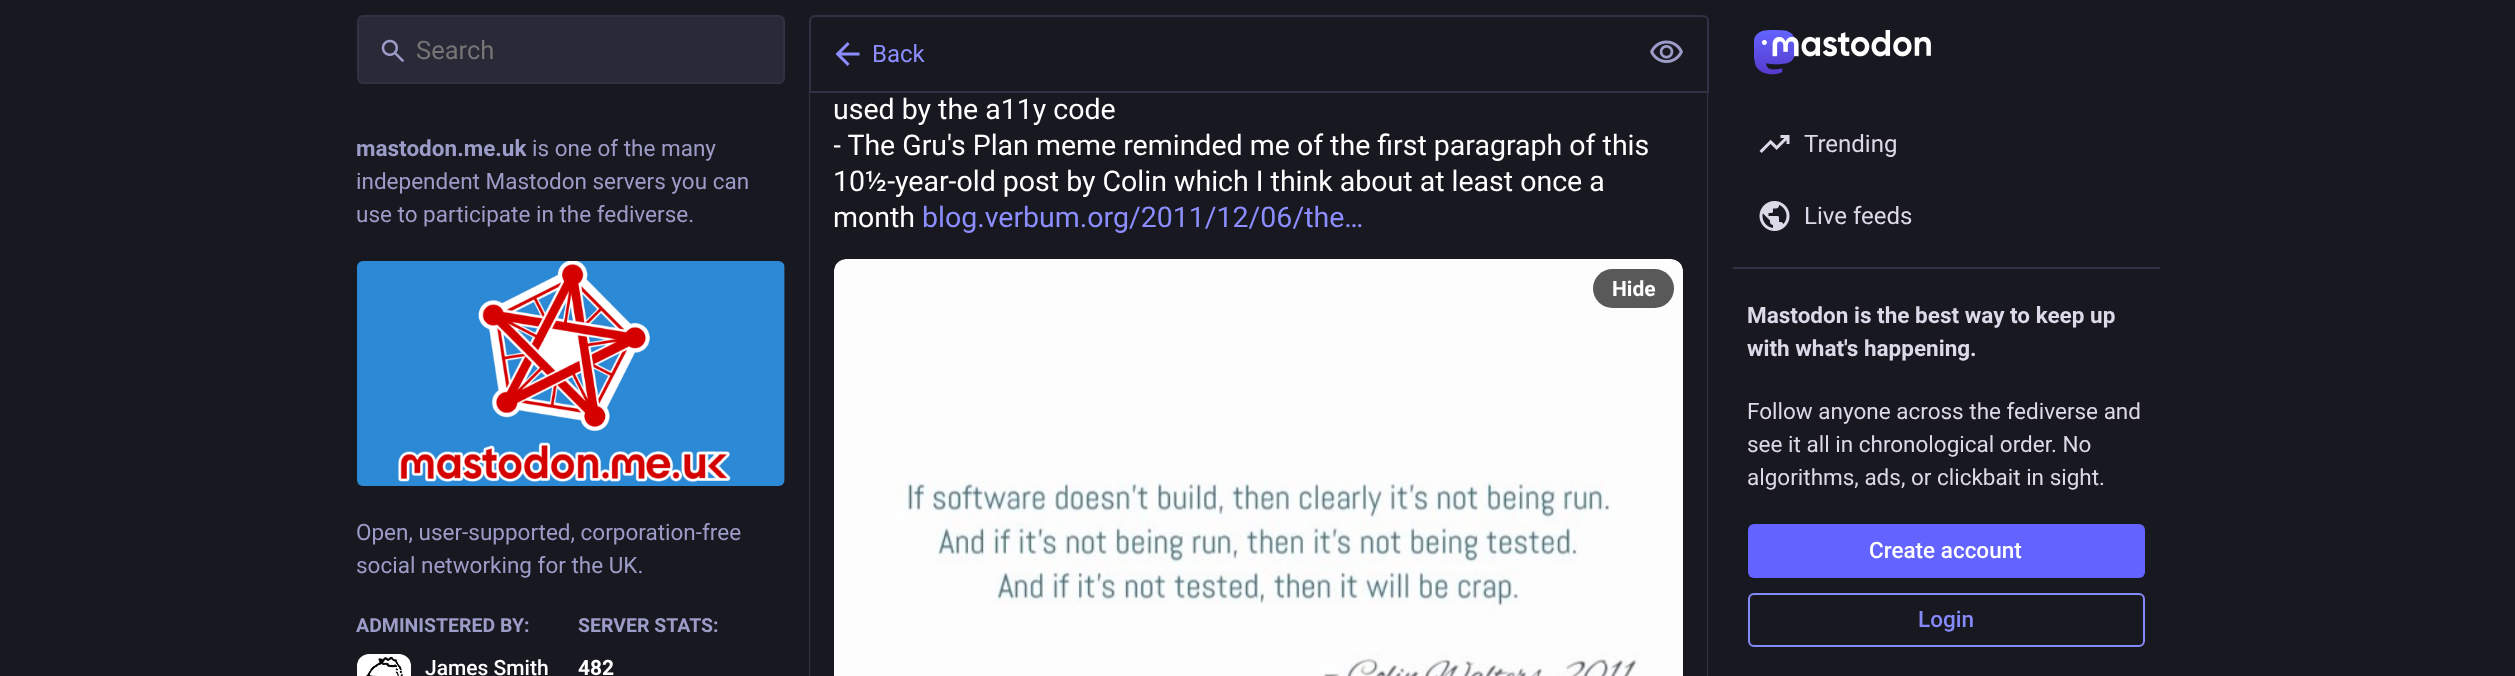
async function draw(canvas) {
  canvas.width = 2515
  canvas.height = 676
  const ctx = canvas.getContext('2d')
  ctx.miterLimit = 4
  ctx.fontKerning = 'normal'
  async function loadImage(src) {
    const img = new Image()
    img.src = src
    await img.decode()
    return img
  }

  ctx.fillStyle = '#181821'
  ctx.fillRect(0, 0, 2515, 676)
  ctx.fillStyle = '#292938'
  ctx.beginPath()
  ctx.roundRect(358, 16, 426, 67, 5)
  ctx.fill()
  ctx.strokeStyle = '#313144'
  ctx.lineWidth = 2
  ctx.stroke()
  ctx.drawImage(await loadImage('image0.png'), 381, 39, 24, 24)
  ctx.font = '25.5px Roboto'
  ctx.fillStyle = '#757575'
  ctx.fillText('Search', 416, 59)
  ctx.font = 'bold 22.5px Roboto'
  ctx.fillStyle = '#9c9cc9'
  ctx.fillText('mastodon.me.uk', 356, 156)
  ctx.font = '22.5px Roboto'
  ctx.fillText('is one of the many', 532, 156)
  ctx.fillText('independent Mastodon servers you can', 356, 189)
  ctx.fillText('use to participate in the fediverse.', 356, 222)
  ctx.fillStyle = '#292938'
  ctx.beginPath()
  ctx.roundRect(357, 261, 428, 225, 6)
  ctx.fill()
  ctx.drawImage(await loadImage('image1.png'), 357, 261, 428, 225)
  ctx.fillStyle = '#9c9cc9'
  ctx.fillText('Open, user-supported, corporation-free', 356, 540)
  ctx.fillText('social networking for the UK.', 356, 573)
  ctx.font = 'bold 19.5px Roboto'
  ctx.fillText('ADMINISTERED BY:', 356, 632)
  ctx.drawImage(await loadImage('image2.png'), 357, 654, 54, 22)
  ctx.font = '500 21px Roboto'
  ctx.fillStyle = '#fff'
  ctx.fillText('James Smith', 425, 675)
  ctx.font = 'bold 19.5px Roboto'
  ctx.fillStyle = '#9c9cc9'
  ctx.fillText('SERVER STATS:', 578, 632)
  ctx.font = 'bold 21px Roboto'
  ctx.fillStyle = '#fff'
  ctx.fillText('482', 578, 675)
  ctx.save()
  ctx.beginPath()
  ctx.rect(809, 0, 900, 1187)
  ctx.clip()
  ctx.fillStyle = '#313144'
  ctx.beginPath()
  ctx.moveTo(808, -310)
  ctx.lineTo(1708, -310)
  ctx.lineTo(1708, 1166)
  ctx.bezierCurveTo(1708, 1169, 1706, 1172, 1702, 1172)
  ctx.lineTo(814, 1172)
  ctx.bezierCurveTo(811, 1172, 808, 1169, 808, 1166)
  ctx.closePath()
  ctx.moveTo(810, -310)
  ctx.lineTo(1707, -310)
  ctx.lineTo(1707, 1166)
  ctx.bezierCurveTo(1707, 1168, 1705, 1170, 1702, 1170)
  ctx.lineTo(814, 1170)
  ctx.bezierCurveTo(812, 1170, 810, 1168, 810, 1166)
  ctx.closePath()
  ctx.fill('evenodd')
  ctx.restore()
  ctx.fillStyle = '#181821'
  ctx.fillRect(809, 0, 899, 91)
  ctx.beginPath()
  ctx.roundRect(810, 16, 898, 76, [5, 5, 0, 0])
  ctx.stroke()
  ctx.drawImage(await loadImage('image3.png'), 835, 42, 25, 24)
  ctx.font = '24px Roboto'
  ctx.fillStyle = '#8c8dff'
  ctx.fillText('Back', 872, 62)
  ctx.drawImage(await loadImage('image4.png'), 1650, 40, 33, 23)
  ctx.font = '28.5px Roboto'
  ctx.fillStyle = '#fff'
  ctx.fillText('used by the a11y code', 833, 119)
  ctx.save()
  ctx.beginPath()
  ctx.rect(834, 0, 849, 236)
  ctx.clip()
  ctx.fillText('- The Gru\'s Plan meme reminded me of the first paragraph of this', 833, 155)
  ctx.restore()
  ctx.fillText('10½-year-old post by Colin which I think about at least once a', 833, 191)
  ctx.fillText('month', 833, 227)
  ctx.fillStyle = '#8c8dff'
  ctx.fillText('blog.verbum.org/2011/12/06/the…', 922, 227)
  ctx.drawImage(await loadImage('image5.png'), 834, 259, 849, 417)
  ctx.fillStyle = '#fcf8ff26'
  ctx.beginPath()
  ctx.moveTo(846, 260)
  ctx.lineTo(1671, 260)
  ctx.bezierCurveTo(1678, 260, 1683, 265, 1683, 272)
  ctx.lineTo(1683, 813)
  ctx.bezierCurveTo(1683, 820, 1678, 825, 1671, 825)
  ctx.lineTo(846, 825)
  ctx.bezierCurveTo(839, 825, 834, 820, 834, 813)
  ctx.lineTo(834, 272)
  ctx.bezierCurveTo(834, 265, 839, 260, 846, 260)
  ctx.closePath()
  ctx.fill()
  ctx.fillStyle = '#595959'
  ctx.beginPath()
  ctx.roundRect(1593, 269, 81, 39, 19.5)
  ctx.fill()
  ctx.font = 'bold 21px Roboto'
  ctx.fillStyle = '#fff'
  ctx.fillText('Hide', 1612, 296)
  ctx.drawImage(await loadImage('image6.png'), 1754, 30, 177, 45)
  ctx.drawImage(await loadImage('image7.png'), 1759, 135, 31, 18)
  ctx.font = '24px Roboto'
  ctx.fillStyle = '#ddd9e8'
  ctx.fillText('Trending', 1804, 152)
  ctx.drawImage(await loadImage('image8.png'), 1759, 201, 31, 30)
  ctx.fillText('Live feeds', 1804, 224)
  ctx.fillStyle = '#313144'
  ctx.fillRect(1733, 267, 427, 2)
  ctx.font = 'bold 22.5px Roboto'
  ctx.fillStyle = '#ddd9e8'
  ctx.fillText('Mastodon is the best way to keep up', 1747, 323)
  ctx.fillText('with what\'s happening.', 1747, 356)
  ctx.font = '22.5px Roboto'
  ctx.fillText('Follow anyone across the fediverse and', 1747, 419)
  ctx.fillText('see it all in chronological order. No', 1747, 452)
  ctx.fillText('algorithms, ads, or clickbait in sight.', 1747, 485)
  ctx.fillStyle = '#6364ff'
  ctx.beginPath()
  ctx.roundRect(1748, 524, 397, 54, 6)
  ctx.fill()
  ctx.font = '500 22.5px Roboto'
  ctx.fillStyle = '#fff'
  ctx.fillText('Create account', 1869, 558)
  ctx.beginPath()
  ctx.roundRect(1749, 594, 395, 52, 5)
  ctx.strokeStyle = '#858afa'
  ctx.stroke()
  ctx.fillStyle = '#858afa'
  ctx.fillText('Login', 1918, 627)
}

draw(document.querySelector('canvas'))
